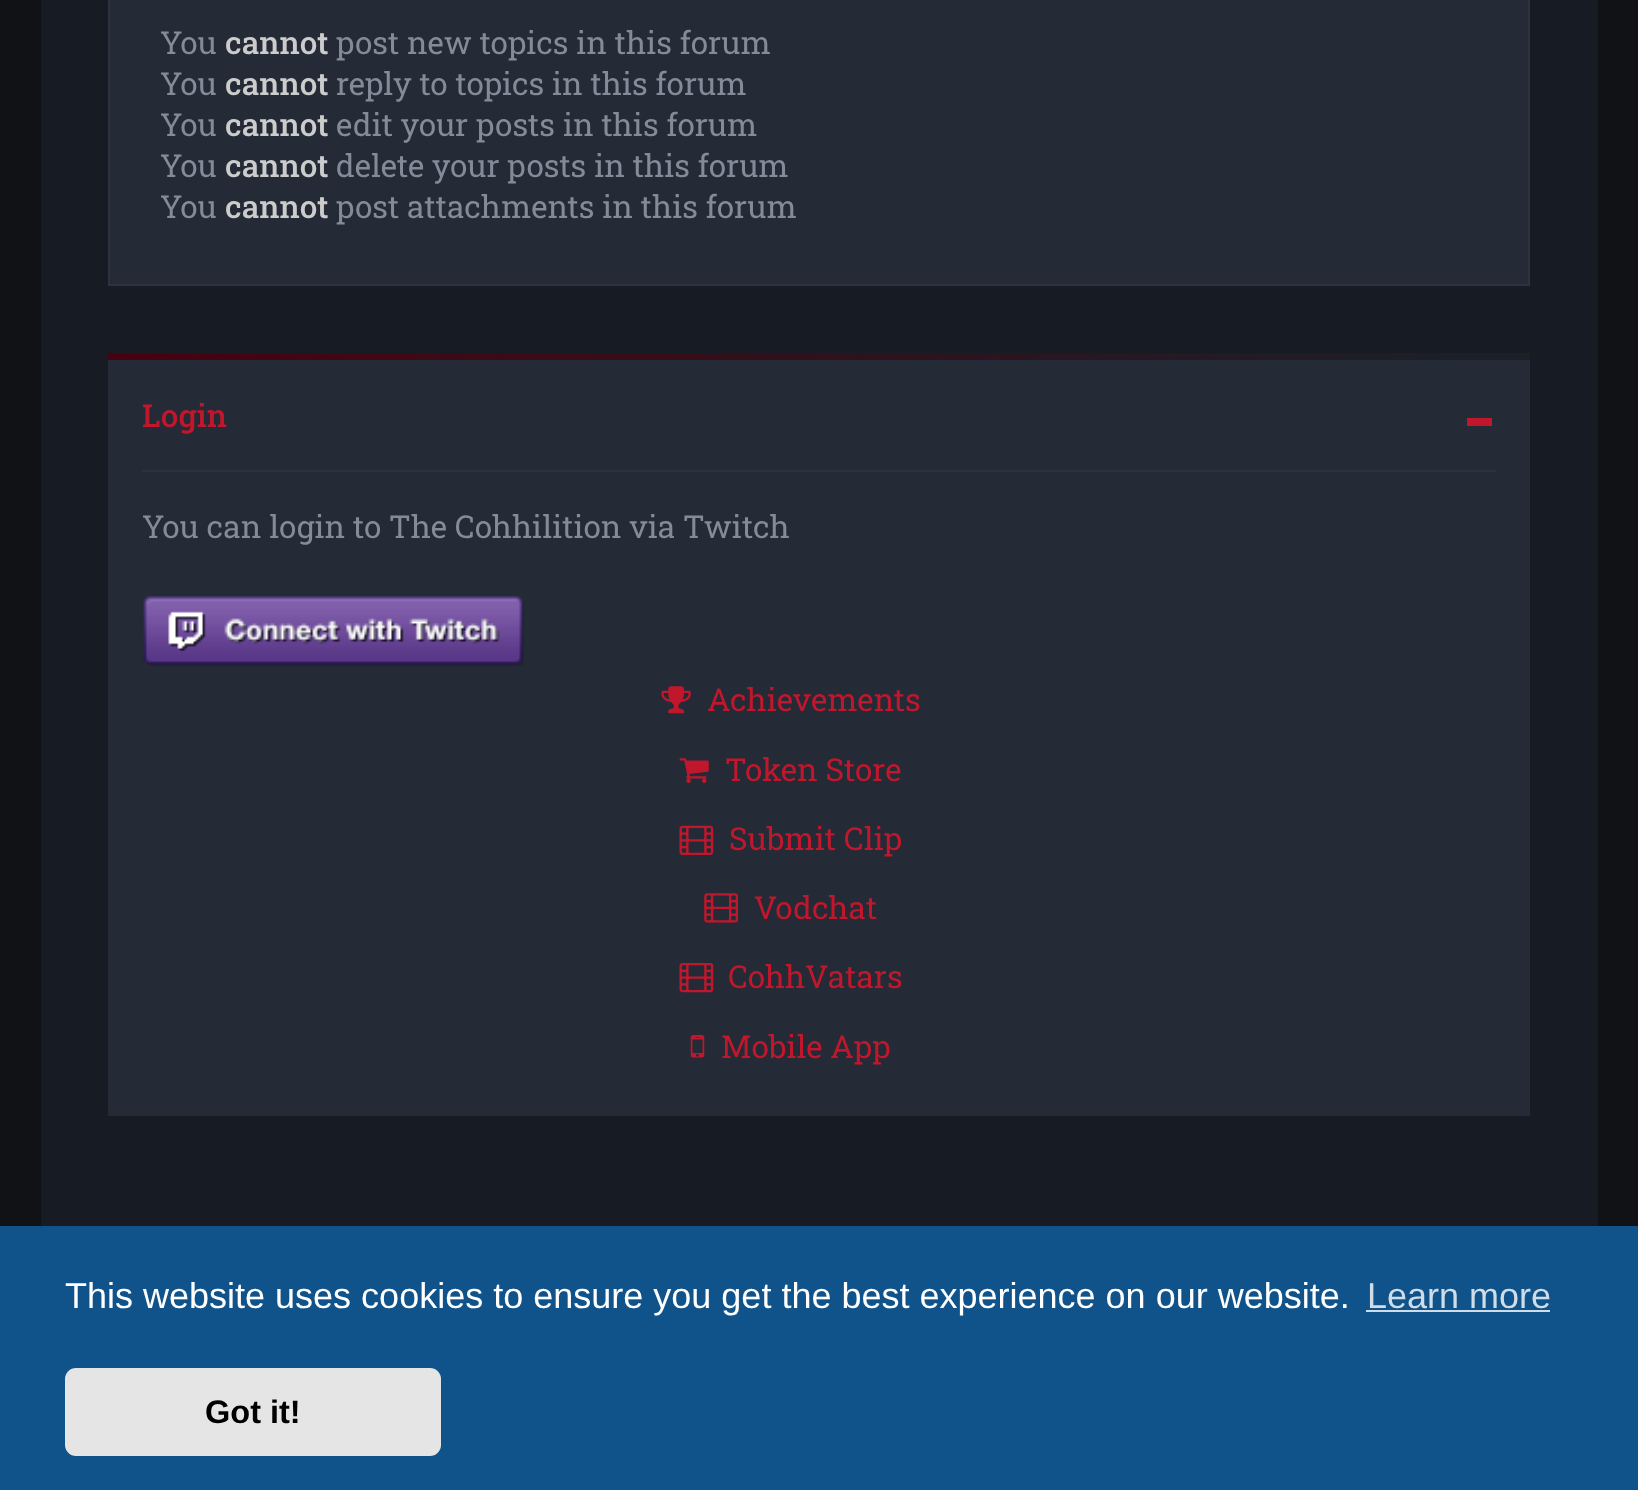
async function draw(canvas) {
  canvas.width = 1638
  canvas.height = 1490
  const ctx = canvas.getContext('2d')
  ctx.miterLimit = 4
  ctx.fontKerning = 'normal'
  async function loadImage(src) {
    const img = new Image()
    img.src = src
    await img.decode()
    return img
  }
  let gradient

  ctx.fillStyle = '#101216'
  ctx.fillRect(0, 0, 1638, 1490)
  ctx.fillStyle = '#171b24'
  ctx.fillRect(41, 0, 1557, 1226)
  ctx.fillStyle = '#242a36'
  ctx.beginPath()
  ctx.rect(109, -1, 1420, 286)
  ctx.fill()
  ctx.strokeStyle = '#2d333e'
  ctx.lineWidth = 2
  ctx.stroke()
  ctx.font = '31.5px Roboto Slab'
  ctx.fillStyle = '#838b98'
  ctx.fillText('You', 160, 54)
  ctx.font = '500 31.5px Roboto Slab'
  ctx.fillStyle = '#ccc'
  ctx.fillText('cannot', 225, 54)
  ctx.font = '31.5px Roboto Slab'
  ctx.fillStyle = '#838b98'
  ctx.fillText('post new topics in this forum', 336, 54)
  ctx.fillText('You', 160, 95)
  ctx.font = '500 31.5px Roboto Slab'
  ctx.fillStyle = '#ccc'
  ctx.fillText('cannot', 225, 95)
  ctx.font = '31.5px Roboto Slab'
  ctx.fillStyle = '#838b98'
  ctx.fillText('reply to topics in this forum', 336, 95)
  ctx.fillText('You', 160, 136)
  ctx.font = '500 31.5px Roboto Slab'
  ctx.fillStyle = '#ccc'
  ctx.fillText('cannot', 225, 136)
  ctx.font = '31.5px Roboto Slab'
  ctx.fillStyle = '#838b98'
  ctx.fillText('edit your posts in this forum', 336, 136)
  ctx.fillText('You', 160, 177)
  ctx.font = '500 31.5px Roboto Slab'
  ctx.fillStyle = '#ccc'
  ctx.fillText('cannot', 225, 177)
  ctx.font = '31.5px Roboto Slab'
  ctx.fillStyle = '#838b98'
  ctx.fillText('delete your posts in this forum', 336, 177)
  ctx.fillText('You', 160, 218)
  ctx.font = '500 31.5px Roboto Slab'
  ctx.fillStyle = '#ccc'
  ctx.fillText('cannot', 225, 218)
  ctx.font = '31.5px Roboto Slab'
  ctx.fillStyle = '#838b98'
  ctx.fillText('post attachments in this forum', 336, 218)
  ctx.fillStyle = '#242a36'
  ctx.fillRect(108, 360, 1422, 756)
  gradient = ctx.createLinearGradient(108, 357, 1530, 357)
  gradient.addColorStop(0, '#49010f')
  gradient.addColorStop(1, '#192129')
  ctx.fillStyle = gradient
  ctx.fillRect(108, 353, 1422, 7)
  ctx.font = '500 31.5px Roboto Slab'
  ctx.fillStyle = '#c1172c'
  ctx.fillText('Login', 142, 427)
  ctx.fillRect(1467, 418, 25, 8)
  ctx.fillStyle = '#2d333e'
  ctx.fillRect(142, 470, 1354, 2)
  ctx.font = '31.5px Roboto Slab'
  ctx.fillStyle = '#838b98'
  ctx.fillText('You can login to The Cohhilition via Twitch', 142, 538)
  ctx.drawImage(await loadImage('image0.png'), 143, 596, 381, 70)
  ctx.drawImage(await loadImage('image1.png'), 661, 686, 30, 28)
  ctx.fillStyle = '#c1172c'
  ctx.fillText('Achievements', 707, 711)
  ctx.drawImage(await loadImage('image2.png'), 679, 758, 30, 25)
  ctx.fillText('Token Store', 725, 781)
  ctx.drawImage(await loadImage('image3.png'), 679, 825, 35, 30)
  ctx.fillText('Submit Clip', 729, 850)
  ctx.drawImage(await loadImage('image4.png'), 704, 893, 34, 30)
  ctx.fillText('Vodchat', 754, 919)
  ctx.drawImage(await loadImage('image5.png'), 679, 963, 35, 30)
  ctx.fillText('CohhVatars', 728, 988)
  ctx.drawImage(await loadImage('image6.png'), 690, 1035, 15, 23)
  ctx.fillText('Mobile App', 721, 1058)
  ctx.fillStyle = '#0f538a'
  ctx.fillRect(0, 1226, 1638, 264)
  ctx.font = '36px Liberation Sans'
  ctx.fillStyle = '#fff'
  ctx.fillText('This website uses cookies to ensure you get the best experience on our website.', 65, 1308)
  ctx.fillStyle = '#cfdde8'
  ctx.fillText('Learn more', 1367, 1308)
  ctx.fillRect(1366, 1310, 184, 2)
  ctx.fillStyle = '#e5e5e5'
  ctx.beginPath()
  ctx.roundRect(65, 1368, 376, 88, 11)
  ctx.fill()
  ctx.font = 'bold 32.5px Liberation Sans'
  ctx.fillStyle = '#000'
  ctx.fillText('Got it!', 205, 1423)
}

draw(document.querySelector('canvas'))
